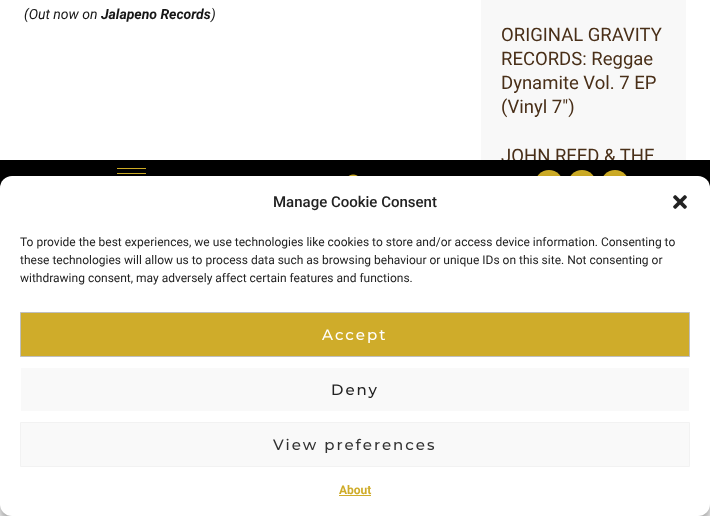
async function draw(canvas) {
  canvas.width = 710
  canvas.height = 516
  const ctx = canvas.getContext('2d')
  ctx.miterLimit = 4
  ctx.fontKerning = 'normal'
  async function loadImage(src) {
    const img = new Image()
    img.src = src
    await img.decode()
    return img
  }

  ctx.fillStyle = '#fff'
  ctx.fillRect(0, 0, 710, 516)
  ctx.font = 'italic 14px Roboto'
  ctx.fillStyle = '#161616'
  ctx.fillText('(Out now on', 24, 19)
  ctx.font = 'italic bold 14px Roboto'
  ctx.fillText('Jalapeno Records', 101, 19)
  ctx.font = 'italic 14px Roboto'
  ctx.fillText(')', 211, 19)
  ctx.fillStyle = '#f8f8f8'
  ctx.fillRect(481, 0, 205, 160)
  ctx.font = '18.5px Roboto'
  ctx.fillStyle = '#492f18'
  ctx.fillText('ORIGINAL GRAVITY', 501, 41)
  ctx.fillText('RECORDS: Reggae', 501, 65)
  ctx.fillText('Dynamite Vol. 7 EP', 501, 89)
  ctx.fillText('(Vinyl 7″)', 501, 113)
  ctx.fillText('JOHN REED & THE', 501, 162)
  ctx.fillStyle = '#000'
  ctx.fillRect(0, 160, 710, 28)
  ctx.fillStyle = '#cfad25'
  ctx.fillRect(117, 168, 29, 1)
  ctx.fillRect(117, 173, 29, 1)
  ctx.drawImage(await loadImage('image0.png'), 348, 174, 10, 2)
  ctx.beginPath()
  ctx.arc(549, 184, 14, 0, 2 * Math.PI)
  ctx.fill()
  ctx.beginPath()
  ctx.arc(582, 184, 14, 0, 2 * Math.PI)
  ctx.fill()
  ctx.beginPath()
  ctx.arc(615, 184, 14, 0, 2 * Math.PI)
  ctx.fill()
  ctx.fillStyle = '#0000003b'
  ctx.filter = 'blur(3px)'
  ctx.beginPath()
  ctx.roundRect(0, 182, 710, 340, 12)
  ctx.fill()
  ctx.filter = 'none'
  ctx.fillStyle = '#00000030'
  ctx.filter = 'blur(10px)'
  ctx.beginPath()
  ctx.roundRect(0, 186, 710, 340, 12)
  ctx.fill()
  ctx.filter = 'none'
  ctx.fillStyle = '#fff'
  ctx.beginPath()
  ctx.roundRect(0, 176, 710, 340, 12)
  ctx.fill()
  ctx.font = '500 15px Roboto'
  ctx.fillStyle = '#222'
  ctx.fillText('Manage Cookie Consent', 273, 207)
  ctx.drawImage(await loadImage('image1.png'), 673, 195, 14, 14)
  ctx.font = '12px Roboto'
  ctx.fillText('To provide the best experiences, we use technologies like cookies to store and/or access device information. Consenting to', 20, 246)
  ctx.fillText('these technologies will allow us to process data such as browsing behaviour or unique IDs on this site. Not consenting or', 20, 264)
  ctx.fillText('withdrawing consent, may adversely affect certain features and functions.', 20, 282)
  ctx.fillStyle = '#cfac2a'
  ctx.beginPath()
  ctx.rect(20.5, 312.5, 669, 44)
  ctx.fill()
  ctx.strokeStyle = '#bfbfbf'
  ctx.stroke()
  ctx.letterSpacing = '2px'
  ctx.font = '500 15px Montserrat'
  ctx.fillStyle = '#fff'
  ctx.fillText('Accept', 322, 340)
  ctx.fillStyle = '#f9f9f9'
  ctx.fillRect(21, 368, 668, 43)
  ctx.fillStyle = '#222'
  ctx.fillText('Deny', 331, 395)
  ctx.fillStyle = '#f9f9f9'
  ctx.beginPath()
  ctx.rect(20.5, 422.5, 669, 44)
  ctx.fill()
  ctx.strokeStyle = '#f2f2f2'
  ctx.stroke()
  ctx.fillStyle = '#333'
  ctx.fillText('View preferences', 273, 450)
  ctx.letterSpacing = '0px'
  ctx.font = 'bold 12px Roboto'
  ctx.fillStyle = '#cfac2a'
  ctx.fillText('About', 339, 494)
  ctx.fillRect(339, 495, 32, 1)
}

draw(document.querySelector('canvas'))
